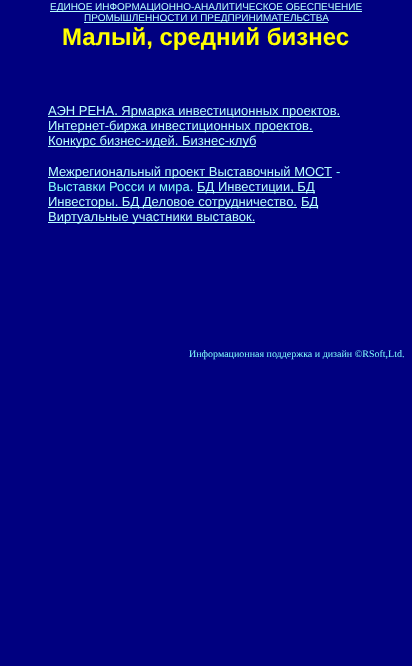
async function draw(canvas) {
  canvas.width = 412
  canvas.height = 666
  const ctx = canvas.getContext('2d')
  ctx.miterLimit = 4
  ctx.fontKerning = 'normal'

  ctx.fillStyle = '#000080'
  ctx.fillRect(0, 0, 412, 666)
  ctx.fillStyle = '#b6ffff'
  ctx.fillRect(50, 11, 312, 1)
  ctx.font = '10px Liberation Sans'
  ctx.fillText('ЕДИНОЕ ИНФОРМАЦИОННО-АНАЛИТИЧЕСКОЕ ОБЕСПЕЧЕНИЕ', 50, 10)
  ctx.fillRect(84, 22, 244, 1)
  ctx.fillText('ПРОМЫШЛЕННОСТИ И ПРЕДПРИНИМАТЕЛЬСТВА', 84, 21)
  ctx.font = 'bold 24px Liberation Sans'
  ctx.fillStyle = '#ff0'
  ctx.fillText('Малый, средний бизнес', 62, 45)
  ctx.fillStyle = '#b6ffff'
  ctx.fillRect(48, 116, 292, 1)
  ctx.font = '13px Liberation Sans'
  ctx.fillText('АЭН РЕНА. Ярмарка инвестиционных проектов.', 48, 115)
  ctx.fillRect(48, 131, 265, 1)
  ctx.fillText('Интернет-биржа инвестиционных проектов.', 48, 130)
  ctx.fillRect(48, 146, 208, 1)
  ctx.fillText('Конкурс бизнес-идей. Бизнес-клуб', 48, 145)
  ctx.fillRect(48, 177, 284, 1)
  ctx.fillText('Межрегиональный проект Выставочный МОСТ', 48, 176)
  ctx.fillStyle = '#80ffff'
  ctx.fillText('-', 336, 176)
  ctx.fillText('Выставки Росси и мира.', 48, 191)
  ctx.fillStyle = '#b6ffff'
  ctx.fillRect(197, 192, 118, 1)
  ctx.fillText('БД Инвестиции, БД', 197, 191)
  ctx.fillRect(48, 207, 249, 1)
  ctx.fillText('Инвесторы. БД Деловое сотрудничество.', 48, 206)
  ctx.fillRect(301, 207, 17, 1)
  ctx.fillText('БД', 301, 206)
  ctx.fillRect(48, 222, 207, 1)
  ctx.fillText('Виртуальные участники выставок.', 48, 221)
  ctx.font = '10px Liberation Serif'
  ctx.fillStyle = '#80ffff'
  ctx.fillText('Информационная поддержка и дизайн ©RSoft,Ltd.', 189, 357)
}

draw(document.querySelector('canvas'))
